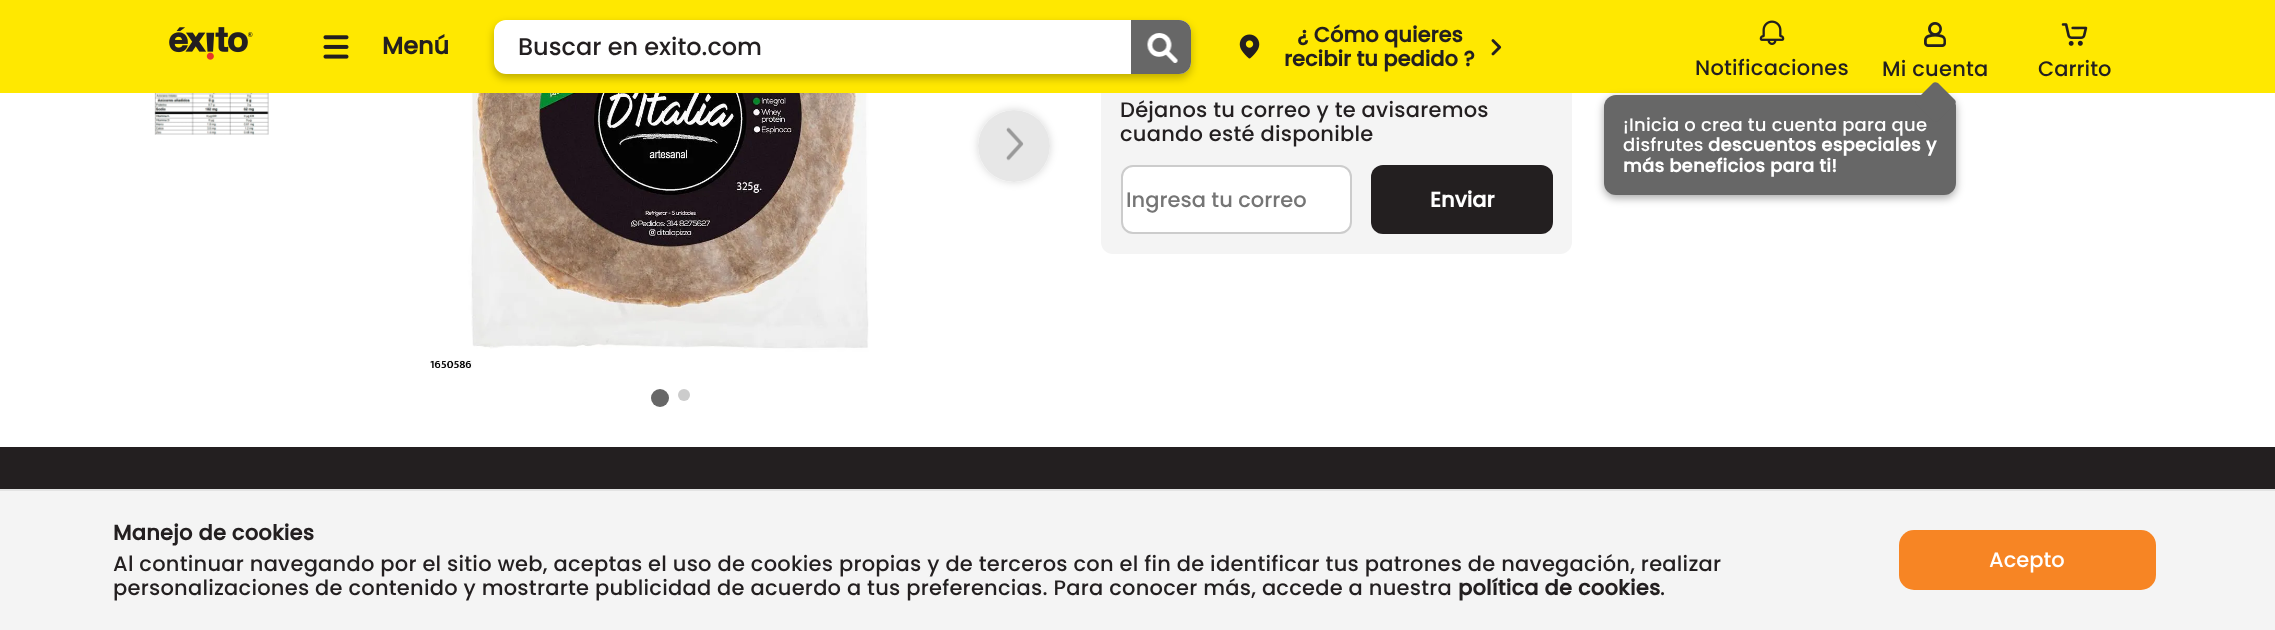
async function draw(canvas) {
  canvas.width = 2275
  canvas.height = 630
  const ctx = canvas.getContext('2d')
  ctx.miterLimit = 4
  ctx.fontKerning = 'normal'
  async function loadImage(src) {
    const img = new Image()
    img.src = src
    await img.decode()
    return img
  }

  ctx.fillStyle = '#fff'
  ctx.fillRect(0, 0, 2275, 630)
  ctx.fillStyle = '#f4f4f4'
  ctx.beginPath()
  ctx.roundRect(1101, -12, 471, 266, 12)
  ctx.fill()
  ctx.fillStyle = '#ffe800'
  ctx.fillRect(0, 0, 2275, 93)
  ctx.drawImage(await loadImage('image0.png'), 169, 27, 84, 33)
  ctx.drawImage(await loadImage('image1.png'), 323, 35, 26, 24)
  ctx.font = 'bold 24px Poppins'
  ctx.fillStyle = '#231f20'
  ctx.fillText('Menú', 382, 54)
  ctx.fillStyle = '#fff'
  ctx.beginPath()
  ctx.roundRect(494, 20, 697, 54, 12)
  ctx.fill()
  ctx.save()
  ctx.beginPath()
  ctx.moveTo(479, 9)
  ctx.lineTo(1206, 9)
  ctx.lineTo(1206, 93)
  ctx.lineTo(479, 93)
  ctx.closePath()
  ctx.moveTo(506, 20)
  ctx.lineTo(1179, 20)
  ctx.bezierCurveTo(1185.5, 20, 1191, 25.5, 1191, 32)
  ctx.lineTo(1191, 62)
  ctx.bezierCurveTo(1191, 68.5, 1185.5, 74, 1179, 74)
  ctx.lineTo(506, 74)
  ctx.bezierCurveTo(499.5, 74, 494, 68.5, 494, 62)
  ctx.lineTo(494, 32)
  ctx.bezierCurveTo(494, 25.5, 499.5, 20, 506, 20)
  ctx.closePath()
  ctx.clip('evenodd')
  ctx.fillStyle = '#00000042'
  ctx.filter = 'blur(4.5px)'
  ctx.beginPath()
  ctx.roundRect(494, 24, 697, 54, 12)
  ctx.fill()
  ctx.filter = 'none'
  ctx.restore()
  ctx.font = '500 24px Poppins'
  ctx.fillStyle = '#231f20'
  ctx.fillText('Buscar en exito.com', 518, 55)
  ctx.fillStyle = '#676767'
  ctx.beginPath()
  ctx.roundRect(1131, 20, 60, 54, [0, 12, 12, 0])
  ctx.fill()
  ctx.drawImage(await loadImage('image2.png'), 1147, 33, 31, 30)
  ctx.drawImage(await loadImage('image3.png'), 1239, 34, 21, 25)
  ctx.font = 'bold 21px Poppins'
  ctx.fillStyle = '#231f20'
  ctx.fillText('¿ Cómo quieres', 1297, 42)
  ctx.fillText('recibir tu pedido ?', 1284, 66)
  ctx.drawImage(await loadImage('image4.png'), 1491, 39, 11, 17)
  ctx.drawImage(await loadImage('image5.png'), 1759, 20, 26, 25)
  ctx.letterSpacing = '0.24px'
  ctx.font = '500 21px Poppins'
  ctx.fillText('Notificaciones', 1695, 75)
  ctx.drawImage(await loadImage('image6.png'), 1924, 22, 22, 25)
  ctx.fillText('Mi cuenta', 1882, 76)
  ctx.fillStyle = '#00000057'
  ctx.filter = 'blur(4.5px)'
  ctx.beginPath()
  ctx.roundRect(1604, 98, 352, 100, 12)
  ctx.fill()
  ctx.filter = 'none'
  ctx.fillStyle = '#676767'
  ctx.beginPath()
  ctx.roundRect(1604, 95, 352, 100, 12)
  ctx.fill()
  ctx.font = '500 18px Poppins'
  ctx.fillStyle = '#fff'
  ctx.fillText('¡Inicia o crea tu cuenta para que', 1623, 131)
  ctx.fillStyle = '#676767'
  ctx.beginPath()
  ctx.moveTo(1938, 83)
  ctx.lineTo(1955, 100)
  ctx.bezierCurveTo(1956, 101, 1956, 103, 1955, 104)
  ctx.lineTo(1938, 121)
  ctx.bezierCurveTo(1936, 122, 1934, 122, 1933, 121)
  ctx.lineTo(1916, 104)
  ctx.bezierCurveTo(1915, 103, 1915, 101, 1916, 100)
  ctx.lineTo(1933, 83)
  ctx.bezierCurveTo(1934, 82, 1936, 82, 1938, 83)
  ctx.closePath()
  ctx.fill()
  ctx.fillStyle = '#fff'
  ctx.fillText('disfrutes', 1623, 151)
  ctx.font = 'bold 18px Poppins'
  ctx.fillText('descuentos especiales y', 1708, 151)
  ctx.fillText('más beneficios para ti!', 1623, 172)
  ctx.drawImage(await loadImage('image7.png'), 2061, 23, 27, 23)
  ctx.letterSpacing = '0px'
  ctx.font = '500 21px Poppins'
  ctx.fillStyle = '#231f20'
  ctx.fillText('Carrito', 2038, 76)
  ctx.drawImage(await loadImage('image8.png'), 154, 93, 115, 42)
  ctx.drawImage(await loadImage('image9.png'), 430, 93, 439, 275)
  ctx.save()
  ctx.beginPath()
  ctx.moveTo(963, 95)
  ctx.lineTo(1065, 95)
  ctx.lineTo(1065, 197)
  ctx.lineTo(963, 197)
  ctx.closePath()
  ctx.moveTo(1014, 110)
  ctx.bezierCurveTo(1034, 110, 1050, 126, 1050, 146)
  ctx.bezierCurveTo(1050, 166, 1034, 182, 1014, 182)
  ctx.bezierCurveTo(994, 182, 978, 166, 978, 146)
  ctx.bezierCurveTo(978, 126, 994, 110, 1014, 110)
  ctx.closePath()
  ctx.clip('evenodd')
  ctx.fillStyle = '#00000029'
  ctx.filter = 'blur(4.5px)'
  ctx.beginPath()
  ctx.roundRect(978, 110, 72, 72, 36)
  ctx.fill()
  ctx.filter = 'none'
  ctx.restore()
  ctx.fillStyle = '#e3e3e3d9'
  ctx.beginPath()
  ctx.arc(1014, 146, 36, 0, 2 * Math.PI)
  ctx.fill()
  ctx.drawImage(await loadImage('image10.png'), 1006, 127, 18, 34)
  ctx.fillStyle = '#676767'
  ctx.beginPath()
  ctx.arc(660, 398, 9, 0, 2 * Math.PI)
  ctx.fill()
  ctx.fillStyle = '#ccc'
  ctx.beginPath()
  ctx.arc(684, 395, 6, 0, 2 * Math.PI)
  ctx.fill()
  ctx.letterSpacing = '0.24px'
  ctx.fillStyle = '#231f20'
  ctx.fillText('Déjanos tu correo y te avisaremos', 1120, 117)
  ctx.fillText('cuando esté disponible', 1120, 141)
  ctx.fillStyle = '#fff'
  ctx.beginPath()
  ctx.roundRect(1122, 166, 229, 67, 11)
  ctx.fill()
  ctx.strokeStyle = '#ccc'
  ctx.lineWidth = 2
  ctx.stroke()
  ctx.letterSpacing = '0px'
  ctx.fillStyle = '#757575'
  ctx.fillText('Ingresa tu correo', 1126, 207)
  ctx.fillStyle = '#231f20'
  ctx.beginPath()
  ctx.roundRect(1371, 165, 182, 69, 12)
  ctx.fill()
  ctx.font = 'bold 21px Poppins'
  ctx.fillStyle = '#fff'
  ctx.fillText('Enviar', 1430, 207)
  ctx.fillStyle = '#231f20'
  ctx.fillRect(0, 447, 2275, 42)
  ctx.fillStyle = '#f4f4f4'
  ctx.fillRect(0, 491, 2275, 139)
  ctx.fillStyle = '#e3e3e3'
  ctx.fillRect(0, 489, 2275, 2)
  ctx.letterSpacing = '0.24px'
  ctx.fillStyle = '#231f20'
  ctx.fillText('Manejo de cookies', 113, 540)
  ctx.font = '500 21px Poppins'
  ctx.fillText('Al continuar navegando por el sitio web, aceptas el uso de cookies propias y de terceros con el fin de identificar tus patrones de navegación, realizar', 113, 571)
  ctx.fillText('personalizaciones de contenido y mostrarte publicidad de acuerdo a tus preferencias. Para conocer más, accede a nuestra', 113, 595)
  ctx.font = 'bold 21px Poppins'
  ctx.fillText('política de cookies', 1458, 595)
  ctx.font = '500 21px Poppins'
  ctx.fillText('.', 1660, 595)
  ctx.fillStyle = '#f78524'
  ctx.beginPath()
  ctx.roundRect(1899, 530, 257, 60, 15)
  ctx.fill()
  ctx.letterSpacing = '0px'
  ctx.fillStyle = '#fff'
  ctx.fillText('Acepto', 1989, 567)
}

draw(document.querySelector('canvas'))
